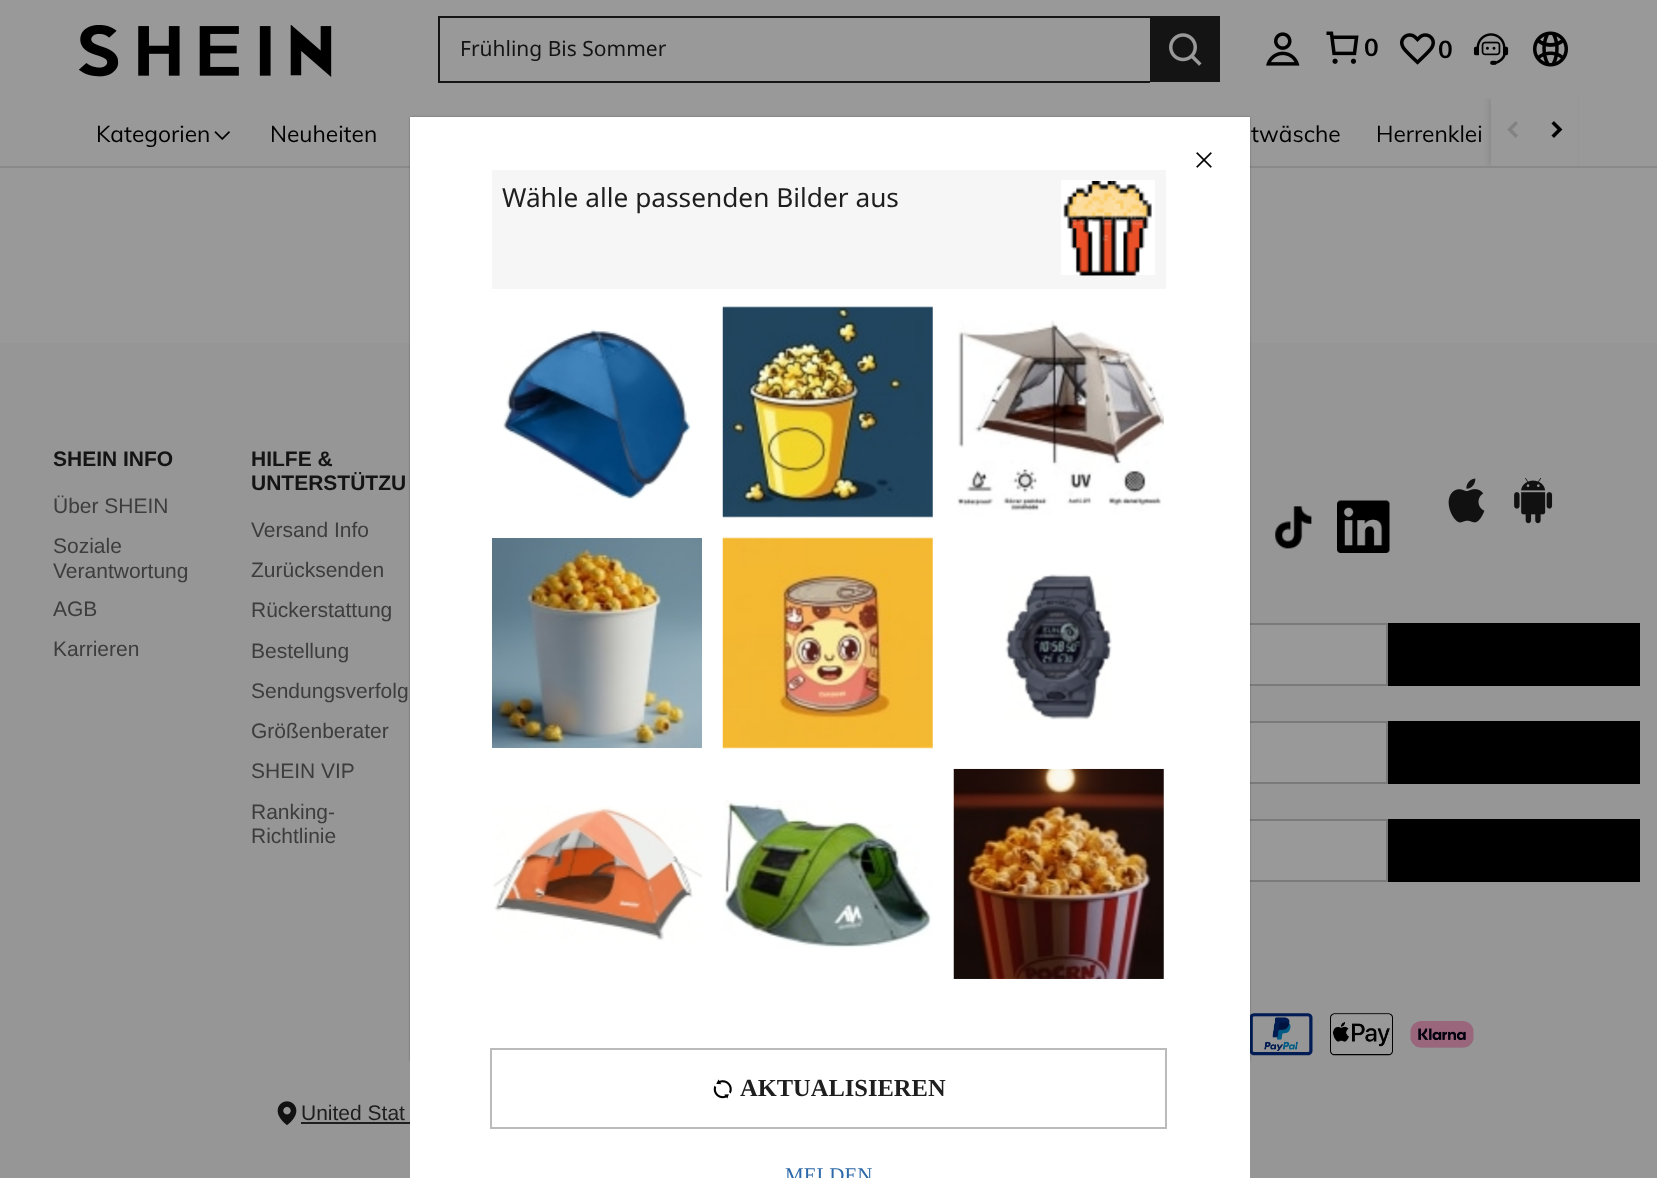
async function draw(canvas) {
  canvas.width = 1657
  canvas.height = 1178
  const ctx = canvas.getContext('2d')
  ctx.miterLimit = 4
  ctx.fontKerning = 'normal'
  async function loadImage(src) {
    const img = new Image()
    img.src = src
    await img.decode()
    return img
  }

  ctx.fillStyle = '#999'
  ctx.fillRect(0, 0, 1657, 1178)
  ctx.drawImage(await loadImage('image0.png'), 79, 25, 253, 52)
  ctx.fillStyle = '#141414'
  ctx.fillRect(438, 16, 712, 2)
  ctx.fillRect(438, 81, 712, 2)
  ctx.fillRect(438, 16, 2, 66)
  ctx.font = '21px Noto Sans'
  ctx.fillText('Frühling Bis Sommer', 460, 56)
  ctx.fillRect(1150, 16, 70, 66)
  ctx.drawImage(await loadImage('image1.png'), 1169, 33, 33, 33)
  ctx.drawImage(await loadImage('image2.png'), 1266, 32, 34, 34)
  ctx.drawImage(await loadImage('image3.png'), 1326, 31, 33, 33)
  ctx.font = 'bold 24.5px Muli'
  ctx.fillStyle = '#000'
  ctx.fillText('0', 1364, 56)
  ctx.drawImage(await loadImage('image4.png'), 1400, 33, 35, 32)
  ctx.fillText('0', 1438, 58)
  ctx.drawImage(await loadImage('image5.png'), 1473, 33, 36, 32)
  ctx.drawImage(await loadImage('image6.png'), 1533, 31, 35, 36)
  ctx.fillStyle = '#898989'
  ctx.fillRect(0, 166, 1657, 2)
  ctx.font = '22.75px Muli'
  ctx.fillStyle = '#000'
  ctx.fillText('Kategorien', 96, 142)
  ctx.drawImage(await loadImage('image7.png'), 214, 131, 16, 9)
  ctx.fillText('Neuheiten', 270, 142)
  ctx.fillText('twäsche', 1251, 142)
  ctx.fillText('Herrenklei', 1376, 142)
  ctx.save()
  ctx.beginPath()
  ctx.rect(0, 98, 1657, 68)
  ctx.clip()
  ctx.fillStyle = '#00000014'
  ctx.filter = 'blur(2.5px)'
  ctx.beginPath()
  ctx.rect(1488, 98, 87, 68)
  ctx.fill()
  ctx.filter = 'none'
  ctx.restore()
  ctx.fillStyle = '#999'
  ctx.fillRect(1491, 98, 86, 68)
  ctx.drawImage(await loadImage('image8.png'), 1507, 121, 11, 17)
  ctx.drawImage(await loadImage('image9.png'), 1551, 121, 12, 17)
  ctx.fillStyle = '#969696'
  ctx.fillRect(0, 343, 1657, 835)
  ctx.font = 'bold 21px Liberation Sans'
  ctx.fillStyle = '#141414'
  ctx.fillText('SHEIN INFO', 53, 466)
  ctx.font = '21px Liberation Sans'
  ctx.fillStyle = '#3d3d3d'
  ctx.fillText('Über SHEIN', 53, 513)
  ctx.fillText('Soziale', 53, 553)
  ctx.fillText('Verantwortung', 53, 578)
  ctx.fillText('AGB', 53, 616)
  ctx.fillText('Karrieren', 53, 656)
  ctx.font = 'bold 21px Liberation Sans'
  ctx.fillStyle = '#141414'
  ctx.fillText('HILFE &', 251, 466)
  ctx.fillText('UNTERSTÜTZU', 251, 490)
  ctx.font = '21px Liberation Sans'
  ctx.fillStyle = '#3d3d3d'
  ctx.fillText('Versand Info', 251, 537)
  ctx.fillText('Zurücksenden', 251, 577)
  ctx.fillText('Rückerstattung', 251, 617)
  ctx.fillText('Bestellung', 251, 658)
  ctx.fillText('Sendungsverfolg', 251, 698)
  ctx.fillText('Größenberater', 251, 738)
  ctx.fillText('SHEIN VIP', 251, 778)
  ctx.fillText('Ranking-', 251, 819)
  ctx.fillText('Richtlinie', 251, 843)
  ctx.drawImage(await loadImage('image10.png'), 1275, 506, 37, 43)
  ctx.drawImage(await loadImage('image11.png'), 1337, 500, 53, 53)
  ctx.drawImage(await loadImage('image12.png'), 1448, 478, 37, 45)
  ctx.drawImage(await loadImage('image13.png'), 1514, 478, 39, 46)
  ctx.fillStyle = '#999'
  ctx.fillRect(1250, 625, 136, 59)
  ctx.strokeStyle = '#7a7a7a'
  ctx.lineWidth = 2
  ctx.strokeRect(848, 624, 539, 61)
  ctx.fillStyle = '#000'
  ctx.fillRect(1388, 623, 252, 63)
  ctx.fillStyle = '#999'
  ctx.fillRect(1250, 723, 136, 59)
  ctx.strokeRect(988, 722, 399, 61)
  ctx.fillStyle = '#000'
  ctx.fillRect(1388, 721, 252, 63)
  ctx.fillStyle = '#999'
  ctx.fillRect(1250, 821, 136, 59)
  ctx.strokeRect(988, 820, 399, 61)
  ctx.fillStyle = '#000'
  ctx.fillRect(1388, 819, 252, 63)
  ctx.drawImage(await loadImage('image14.png'), 1250, 1013, 63, 43)
  ctx.drawImage(await loadImage('image15.png'), 1330, 1013, 63, 43)
  ctx.drawImage(await loadImage('image16.png'), 1410, 1021, 64, 27)
  ctx.drawImage(await loadImage('image17.png'), 277, 1101, 20, 24)
  ctx.fillStyle = '#1e1e1e'
  ctx.fillText('United Stat', 301, 1120)
  ctx.fillRect(301, 1122, 109, 2)
  ctx.fillStyle = '#0000004d'
  ctx.filter = 'blur(1px)'
  ctx.beginPath()
  ctx.rect(410, 117, 840, 944)
  ctx.fill()
  ctx.filter = 'none'
  ctx.fillStyle = '#fff'
  ctx.fillRect(410, 117, 840, 1061)
  ctx.drawImage(await loadImage('image18.png'), 1196, 152, 16, 16)
  ctx.fillStyle = '#f6f6f6'
  ctx.fillRect(492, 170, 674, 119)
  ctx.font = '26.25px Noto Sans'
  ctx.fillStyle = '#1e1e1e'
  ctx.fillText('Wähle alle passenden Bilder aus', 502, 207)
  ctx.fillStyle = '#fff'
  ctx.fillRect(1061, 180, 94, 95)
  ctx.drawImage(await loadImage('image19.png'), 1063, 180, 89, 96)
  ctx.drawImage(await loadImage('image20.png'), 503, 329, 189, 171)
  ctx.drawImage(await loadImage('image21.png'), 722, 306, 211, 212)
  ctx.drawImage(await loadImage('image22.png'), 957, 320, 207, 195)
  ctx.drawImage(await loadImage('image23.png'), 492, 538, 210, 210)
  ctx.drawImage(await loadImage('image24.png'), 722, 537, 211, 212)
  ctx.drawImage(await loadImage('image25.png'), 1005, 574, 107, 146)
  ctx.drawImage(await loadImage('image26.png'), 493, 806, 209, 135)
  ctx.drawImage(await loadImage('image27.png'), 723, 800, 209, 148)
  ctx.drawImage(await loadImage('image28.png'), 953, 768, 211, 211)
  ctx.strokeStyle = '#bbb'
  ctx.strokeRect(491, 1049, 675, 79)
  ctx.drawImage(await loadImage('image29.png'), 713, 1079, 19, 20)
  ctx.font = 'bold 24.5px Liberation Serif'
  ctx.fillStyle = '#1e1e1e'
  ctx.fillText('AKTUALISIEREN', 740, 1096)
  ctx.font = '21px Liberation Serif'
  ctx.fillStyle = '#2d68a8'
  ctx.fillText('MELDEN', 785, 1182)
}

draw(document.querySelector('canvas'))
